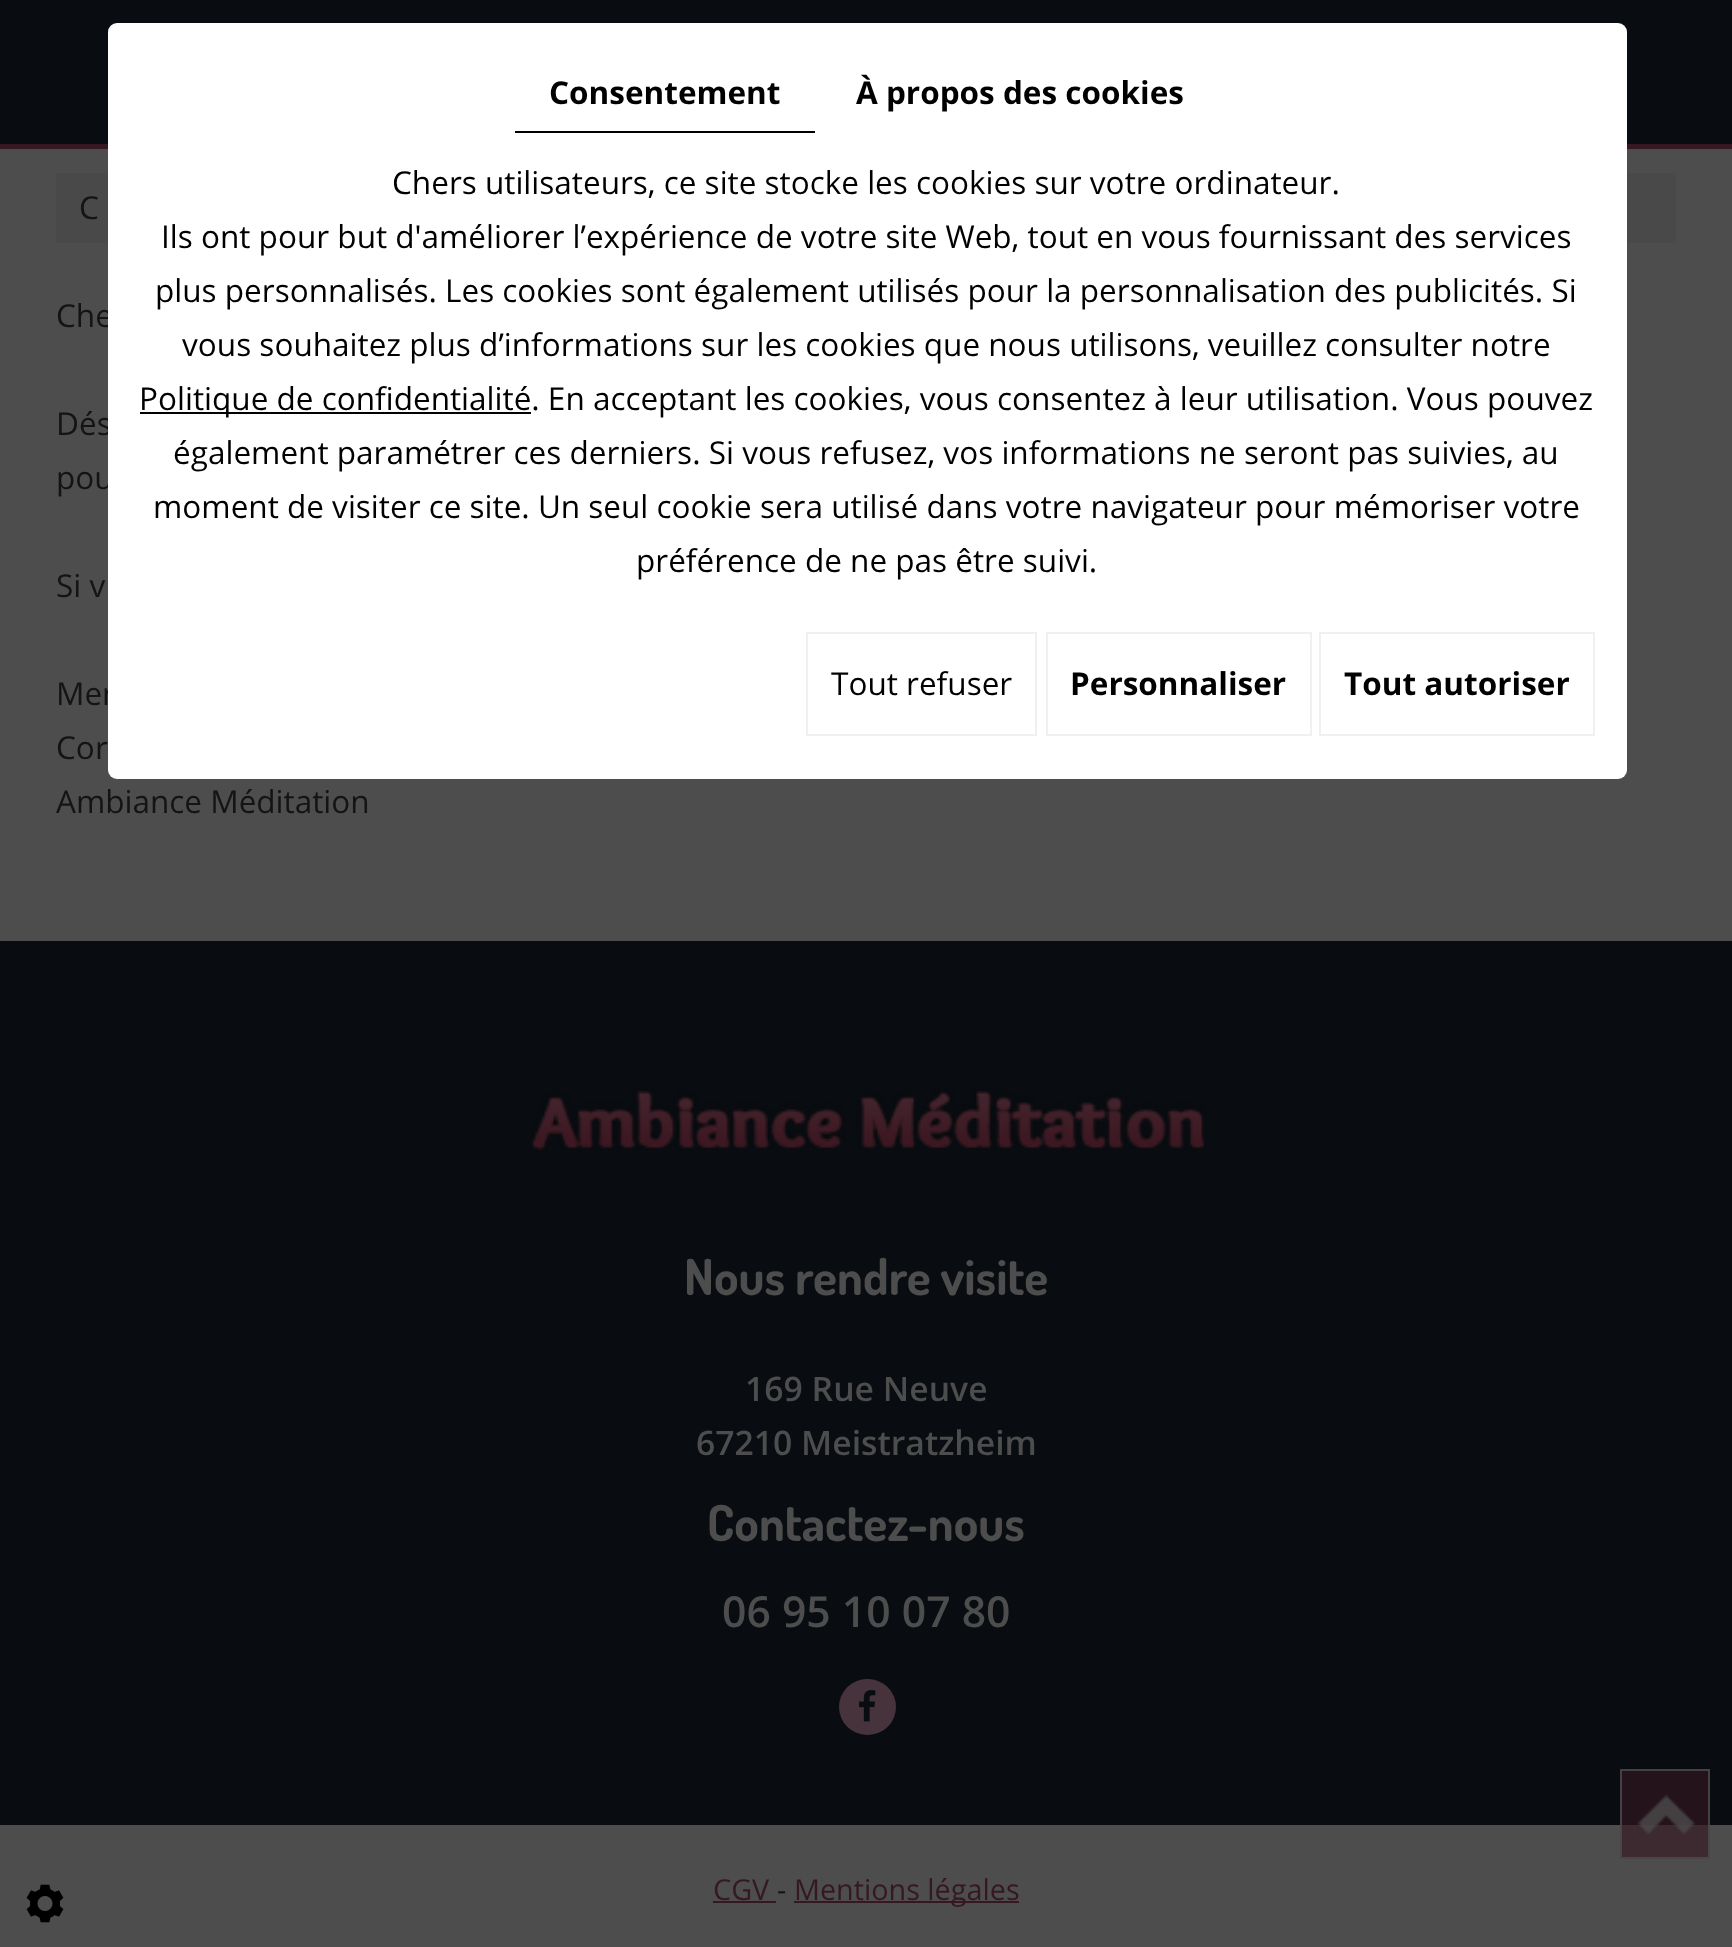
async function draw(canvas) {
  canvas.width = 1732
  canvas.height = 1947
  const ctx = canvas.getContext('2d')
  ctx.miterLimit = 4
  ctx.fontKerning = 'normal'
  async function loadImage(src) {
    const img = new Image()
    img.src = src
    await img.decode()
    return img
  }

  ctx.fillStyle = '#4d4d4d'
  ctx.fillRect(0, 0, 1732, 1947)
  ctx.fillStyle = '#090d12'
  ctx.fillRect(0, 0, 1732, 144)
  ctx.fillStyle = '#351821'
  ctx.fillRect(0, 144, 1732, 5)
  ctx.fillStyle = '#090d12'
  ctx.fillRect(0, 941, 1732, 884)
  ctx.fillStyle = '#494949'
  ctx.fillRect(56, 173, 1620, 70)
  ctx.font = '31.5px Open Sans'
  ctx.fillStyle = '#141414'
  ctx.fillText('Che', 56, 327)
  ctx.fillText('Dés', 56, 435)
  ctx.fillText('pou', 56, 489)
  ctx.fillText('Mer', 56, 705)
  ctx.fillStyle = '#fff'
  ctx.beginPath()
  ctx.roundRect(108, 23, 1519, 756, 9)
  ctx.fill()
  ctx.fillStyle = '#000'
  ctx.fillRect(515, 131, 300, 2)
  ctx.font = 'bold 31.5px Open Sans'
  ctx.fillText('Consentement', 549, 104)
  ctx.fillText('À propos des cookies', 856, 104)
  ctx.font = '31.5px Open Sans'
  ctx.fillText('Chers utilisateurs, ce site stocke les cookies sur votre ordinateur.', 392, 194)
  ctx.fillText('Ils ont pour but d\'améliorer l’expérience de votre site Web, tout en vous fournissant des services', 161, 248)
  ctx.fillText('plus personnalisés. Les cookies sont également utilisés pour la personnalisation des publicités. Si', 155, 302)
  ctx.fillText('vous souhaitez plus d’informations sur les cookies que nous utilisons, veuillez consulter notre', 182, 356)
  ctx.fillRect(140, 412, 391, 2)
  ctx.fillText('Politique de confidentialité. En acceptant les cookies, vous consentez à leur utilisation. Vous pouvez', 139, 410)
  ctx.fillText('également paramétrer ces derniers. Si vous refusez, vos informations ne seront pas suivies, au', 173, 464)
  ctx.fillText('moment de visiter ce site. Un seul cookie sera utilisé dans votre navigateur pour mémoriser votre', 153, 518)
  ctx.fillText('préférence de ne pas être suivi.', 636, 572)
  ctx.strokeStyle = '#f0f0f0'
  ctx.lineWidth = 2
  ctx.strokeRect(807, 633, 229, 102)
  ctx.fillText('Tout refuser', 831, 695)
  ctx.strokeRect(1047, 633, 264, 102)
  ctx.font = 'bold 31.5px Open Sans'
  ctx.fillText('Personnaliser', 1070, 695)
  ctx.strokeRect(1320, 633, 274, 102)
  ctx.fillText('Tout autoriser', 1344, 695)
  ctx.drawImage(await loadImage('image0.png'), 530, 1088, 676, 63)
  ctx.font = 'bold 49.5px Dosis'
  ctx.fillStyle = '#4d4d4d'
  ctx.fillText('Nous rendre visite', 684, 1295)
  ctx.font = '600 33.75px Open Sans'
  ctx.fillText('169 Rue Neuve', 745, 1401)
  ctx.fillText('67210 Meistratzheim', 696, 1455)
  ctx.font = 'bold 49.5px Dosis'
  ctx.fillText('Contactez-nous', 707, 1541)
  ctx.font = '600 42.75px Open Sans'
  ctx.fillText('06 95 10 07 80', 722, 1627)
  ctx.fillStyle = '#47333c'
  ctx.beginPath()
  ctx.roundRect(839, 1679, 57, 56, 28)
  ctx.fill()
  ctx.drawImage(await loadImage('image1.png'), 859, 1690, 17, 32)
  ctx.drawImage(await loadImage('image2.png'), 26, 1884, 38, 39)
  ctx.font = '28.75px Open Sans'
  ctx.fillStyle = '#351821'
  ctx.fillText('CGV', 713, 1900)
  ctx.fillStyle = '#141414'
  ctx.fillText('-', 777, 1900)
  ctx.fillStyle = '#351821'
  ctx.fillRect(713, 1901, 63, 2)
  ctx.fillRect(794, 1901, 225, 2)
  ctx.fillText('Mentions légales', 794, 1900)
  ctx.font = '31.5px Open Sans'
  ctx.fillStyle = '#141414'
  ctx.fillText('C', 79, 219)
  ctx.fillText('Si v', 56, 597)
  ctx.fillText('Cor', 56, 759)
  ctx.fillText('Ambiance Méditation', 56, 813)
  ctx.fillStyle = '#351821a3'
  ctx.fillRect(1620, 1769, 90, 90)
  ctx.drawImage(await loadImage('image3.png'), 1637, 1794, 58, 41)
  ctx.strokeStyle = '#4d4d4dcc'
  ctx.strokeRect(1621, 1770, 88, 88)
}

draw(document.querySelector('canvas'))
